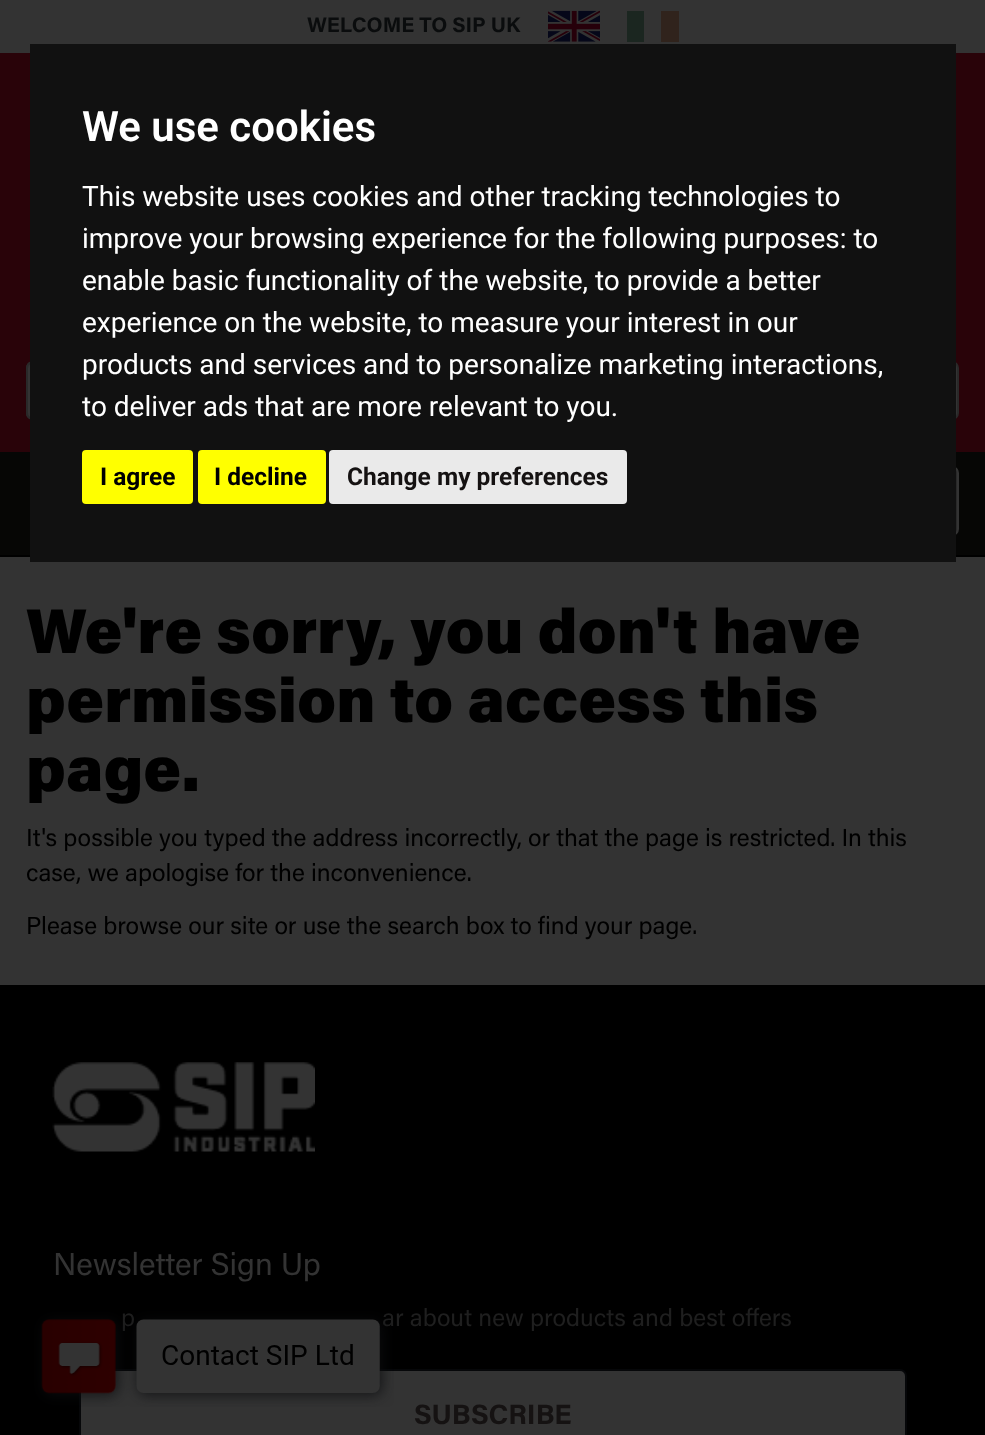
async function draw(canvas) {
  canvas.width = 985
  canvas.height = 1435
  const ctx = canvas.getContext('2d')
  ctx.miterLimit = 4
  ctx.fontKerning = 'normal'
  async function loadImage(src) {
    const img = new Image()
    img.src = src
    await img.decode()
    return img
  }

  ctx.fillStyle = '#333'
  ctx.fillRect(0, 0, 985, 1435)
  ctx.font = 'bold 21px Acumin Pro'
  ctx.fillStyle = '#0a0c0d'
  ctx.fillText('WELCOME TO SIP UK', 307, 32)
  ctx.drawImage(await loadImage('image0.png'), 548, 10, 52, 32)
  ctx.fillStyle = '#1b2620'
  ctx.fillRect(627, 11, 17, 31)
  ctx.fillStyle = '#30231c'
  ctx.fillRect(661, 11, 18, 31)
  ctx.fillStyle = '#290309'
  ctx.fillRect(0, 53, 985, 399)
  ctx.fillStyle = '#333'
  ctx.beginPath()
  ctx.roundRect(26, 361, 865, 59, [7, 0, 0, 7])
  ctx.fill()
  ctx.fillStyle = '#2f2f2f'
  ctx.beginPath()
  ctx.moveTo(33, 364)
  ctx.lineTo(889, 364)
  ctx.lineTo(889, 362)
  ctx.lineTo(33, 362)
  ctx.bezierCurveTo(29, 362, 28, 366, 28, 369)
  ctx.bezierCurveTo(28, 366, 30, 364, 33, 364)
  ctx.closePath()
  ctx.fill()
  ctx.beginPath()
  ctx.roundRect(27, 362, 863, 57, [6, 0, 0, 6])
  ctx.strokeStyle = '#292929'
  ctx.lineWidth = 2
  ctx.stroke()
  ctx.fillStyle = '#333'
  ctx.beginPath()
  ctx.roundRect(890, 362, 68, 57, [0, 6, 6, 0])
  ctx.fill()
  ctx.stroke()
  ctx.fillStyle = '#060605'
  ctx.fillRect(0, 452, 985, 103)
  ctx.fillStyle = '#000'
  ctx.fillRect(0, 555, 985, 2)
  ctx.fillStyle = '#292929'
  ctx.beginPath()
  ctx.roundRect(901, 467, 57, 68, 6)
  ctx.fill()
  ctx.strokeStyle = '#333'
  ctx.stroke()
  ctx.font = '900 63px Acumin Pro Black'
  ctx.fillStyle = '#000'
  ctx.fillText('We\'re sorry, you don\'t have', 26, 653)
  ctx.fillText('permission to access this', 26, 722)
  ctx.fillText('page.', 26, 791)
  ctx.font = '24.5px Acumin Pro'
  ctx.fillText('It\'s possible you typed the address incorrectly, or that the page is restricted. In this', 26, 846)
  ctx.fillText('case, we apologise for the inconvenience.', 26, 881)
  ctx.fillText('Please browse our site or use the search box to find your page.', 26, 934)
  ctx.fillRect(0, 985, 985, 450)
  ctx.drawImage(await loadImage('image1.png'), 52, 1062, 263, 90)
  ctx.font = '31.5px Acumin Pro'
  ctx.fillStyle = '#333'
  ctx.fillText('Newsletter Sign Up', 53, 1275)
  ctx.font = '24.5px Acumin Pro'
  ctx.fillStyle = '#1f1f1f'
  ctx.fillText('p', 121, 1326)
  ctx.fillText('ar about new products and best offers', 382, 1326)
  ctx.fillStyle = '#333'
  ctx.beginPath()
  ctx.roundRect(80, 1370, 826, 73, 6)
  ctx.fill()
  ctx.strokeStyle = '#060709'
  ctx.stroke()
  ctx.font = 'bold 28px Acumin Pro'
  ctx.fillStyle = '#151212'
  ctx.fillText('SUBSCRIBE', 414, 1424)
  ctx.fillStyle = '#111'
  ctx.fillRect(30, 44, 926, 518)
  ctx.font = '600 42px Roboto'
  ctx.fillStyle = '#fff'
  ctx.fillText('We use cookies', 82, 141)
  ctx.font = '28px Roboto'
  ctx.fillText('This website uses cookies and other tracking technologies to', 82, 206)
  ctx.fillText('improve your browsing experience for the following purposes: to', 82, 248)
  ctx.fillText('enable basic functionality of the website, to provide a better', 82, 290)
  ctx.fillText('experience on the website, to measure your interest in our', 82, 332)
  ctx.fillText('products and services and to personalize marketing interactions,', 82, 374)
  ctx.fillText('to deliver ads that are more relevant to you.', 82, 416)
  ctx.fillStyle = '#ff0'
  ctx.beginPath()
  ctx.roundRect(82, 450, 111, 54, 4)
  ctx.fill()
  ctx.font = 'bold 24.5px Roboto'
  ctx.fillStyle = '#000'
  ctx.fillText('I agree', 100, 485)
  ctx.fillStyle = '#ff0'
  ctx.beginPath()
  ctx.roundRect(198, 450, 128, 54, 4)
  ctx.fill()
  ctx.fillStyle = '#000'
  ctx.fillText('I decline', 214, 485)
  ctx.fillStyle = '#eaeaea'
  ctx.beginPath()
  ctx.roundRect(329, 450, 298, 54, 4)
  ctx.fill()
  ctx.fillStyle = '#151212'
  ctx.fillText('Change my preferences', 347, 485)
  ctx.drawImage(await loadImage('image2.png'), 34, 1310, 360, 97)
}

draw(document.querySelector('canvas'))
